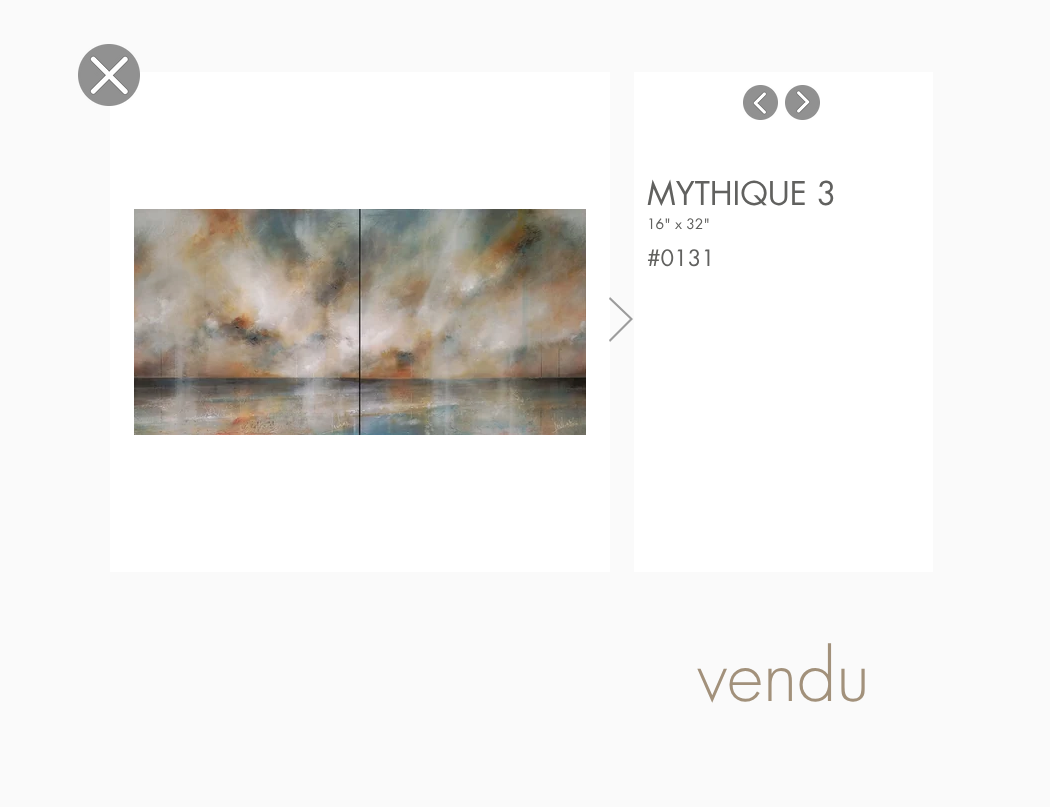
async function draw(canvas) {
  canvas.width = 1050
  canvas.height = 807
  const ctx = canvas.getContext('2d')
  ctx.miterLimit = 4
  ctx.fontKerning = 'normal'
  async function loadImage(src) {
    const img = new Image()
    img.src = src
    await img.decode()
    return img
  }

  ctx.fillStyle = '#fafafa'
  ctx.fillRect(0, 0, 1050, 807)
  ctx.fillStyle = '#fff'
  ctx.fillRect(110, 72, 500, 500)
  ctx.drawImage(await loadImage('image0.png'), 78, 44, 62, 62)
  ctx.fillRect(634, 72, 299, 500)
  ctx.drawImage(await loadImage('image1.png'), 743, 85, 35, 35)
  ctx.drawImage(await loadImage('image2.png'), 785, 85, 35, 35)
  ctx.font = '32px futura'
  ctx.fillStyle = '#61615f'
  ctx.fillText('MYTHIQUE 3', 647, 205)
  ctx.drawImage(await loadImage('image3.png'), 134, 209, 452, 226)
  ctx.fillStyle = '#919191e6'
  ctx.beginPath()
  ctx.moveTo(609, 299)
  ctx.lineTo(610, 297)
  ctx.lineTo(633, 319)
  ctx.lineTo(610, 342)
  ctx.lineTo(609, 340)
  ctx.lineTo(630, 319)
  ctx.closePath()
  ctx.fill()
  ctx.font = '14px futura'
  ctx.fillStyle = '#61615f'
  ctx.fillText('16" x 32"', 647, 229)
  ctx.font = '22px futura'
  ctx.fillText('#0131', 647, 266)
  ctx.font = '300 70px futura'
  ctx.fillStyle = '#a2917b'
  ctx.fillText('vendu', 697, 701)
}

draw(document.querySelector('canvas'))
